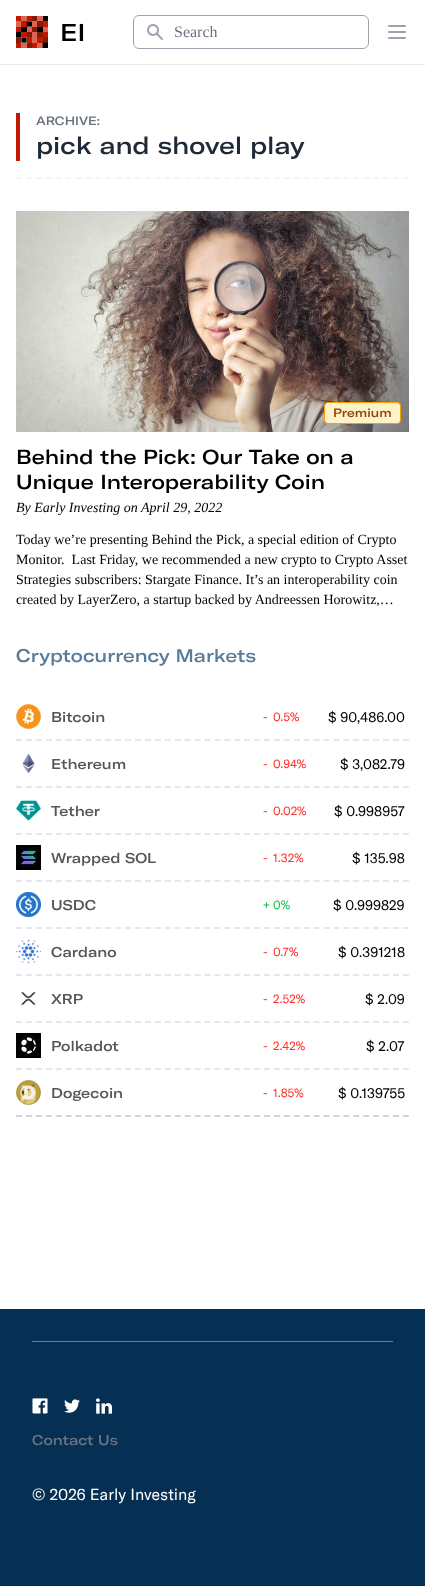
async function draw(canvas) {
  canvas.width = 425
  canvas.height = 1586
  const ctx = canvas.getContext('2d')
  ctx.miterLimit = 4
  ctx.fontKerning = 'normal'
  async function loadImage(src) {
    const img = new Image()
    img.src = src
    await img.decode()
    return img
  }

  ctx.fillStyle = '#062f54'
  ctx.fillRect(0, 0, 425, 1586)
  ctx.fillStyle = '#fff'
  ctx.fillRect(0, 0, 425, 64)
  ctx.fillStyle = '#e5e7eb'
  ctx.fillRect(0, 64, 425, 1)
  ctx.drawImage(await loadImage('image0.png'), 16, 16, 32, 32)
  ctx.font = '500 24px GT America'
  ctx.fillStyle = '#000'
  ctx.fillText('EI', 60, 41)
  ctx.beginPath()
  ctx.roundRect(133.5, 15.5, 235, 33, 5.5)
  ctx.strokeStyle = '#9ca3af'
  ctx.stroke()
  ctx.drawImage(await loadImage('image1.png'), 147, 24, 16, 16)
  ctx.font = '16px Liberation Serif'
  ctx.fillStyle = '#6b7280'
  ctx.fillText('Search', 174, 37)
  ctx.beginPath()
  ctx.moveTo(389, 26)
  ctx.lineTo(405, 26)
  ctx.moveTo(389, 32)
  ctx.lineTo(405, 32)
  ctx.moveTo(389, 38)
  ctx.lineTo(405, 38)
  ctx.lineWidth = 2
  ctx.lineCap = 'round'
  ctx.lineJoin = 'round'
  ctx.stroke()
  ctx.fillStyle = '#fff'
  ctx.fillRect(0, 65, 425, 1244)
  ctx.beginPath()
  ctx.moveTo(16, 178)
  ctx.lineTo(409, 178)
  ctx.strokeStyle = '#f3f4f6'
  ctx.lineCap = 'butt'
  ctx.lineJoin = 'miter'
  ctx.setLineDash([6, 3.92])
  ctx.stroke()
  ctx.fillStyle = '#c11902'
  ctx.fillRect(16, 113, 4, 48)
  ctx.font = '500 12px GT America'
  ctx.fillStyle = '#6b7280'
  ctx.fillText('ARCHIVE:', 36, 125)
  ctx.font = '500 24px GT America'
  ctx.fillStyle = '#1f2937'
  ctx.fillText('pick and shovel play', 36, 154)
  ctx.drawImage(await loadImage('image2.png'), 16, 211, 393, 221)
  ctx.fillStyle = '#fef3c7'
  ctx.beginPath()
  ctx.roundRect(324.5, 402.5, 76, 21, 3.5)
  ctx.fill()
  ctx.strokeStyle = '#f59e0b'
  ctx.lineWidth = 1
  ctx.setLineDash([])
  ctx.stroke()
  ctx.font = '500 12px GT America'
  ctx.fillStyle = '#92400e'
  ctx.fillText('Premium', 333, 417)
  ctx.font = '500 20px GT America'
  ctx.fillStyle = '#000'
  ctx.fillText('Behind the Pick: Our Take on a', 16, 464)
  ctx.fillText('Unique Interoperability Coin', 16, 489)
  ctx.font = 'italic 14px Liberation Serif'
  ctx.fillText('By Early Investing on April 29, 2022', 16, 512)
  ctx.font = '14px Liberation Serif'
  ctx.fillText('Today we’re presenting Behind the Pick, a special edition of Crypto', 16, 544)
  ctx.fillText('Monitor.  Last Friday, we recommended a new crypto to Crypto Asset', 16, 564)
  ctx.fillText('Strategies subscribers: Stargate Finance. It’s an interoperability coin', 16, 584)
  ctx.fillText('created by LayerZero, a startup backed by Andreessen Horowitz,…', 16, 604)
  ctx.font = '500 18px GT America'
  ctx.fillStyle = '#5a7c9a'
  ctx.fillText('Cryptocurrency Markets', 16, 662)
  ctx.beginPath()
  ctx.moveTo(16, 1116)
  ctx.lineTo(409, 1116)
  ctx.strokeStyle = '#d1d5db'
  ctx.lineWidth = 2
  ctx.setLineDash([6, 3.92])
  ctx.stroke()
  ctx.beginPath()
  ctx.moveTo(16, 740)
  ctx.lineTo(409, 740)
  ctx.strokeStyle = '#e5e7eb'
  ctx.stroke()
  ctx.drawImage(await loadImage('image3.png'), 16, 704, 25, 25)
  ctx.font = '500 14px GT America'
  ctx.fillStyle = '#565656'
  ctx.fillText('Bitcoin', 51, 722)
  ctx.font = '12px GT America'
  ctx.fillStyle = '#ff3026'
  ctx.fillText('-', 263, 721)
  ctx.fillText('0.5%', 273, 721)
  ctx.font = '14px GT America'
  ctx.fillStyle = '#000'
  ctx.fillText('$ 90,486.00', 328, 722)
  ctx.beginPath()
  ctx.moveTo(16, 787)
  ctx.lineTo(409, 787)
  ctx.stroke()
  ctx.drawImage(await loadImage('image4.png'), 22, 753, 13, 21)
  ctx.font = '500 14px GT America'
  ctx.fillStyle = '#565656'
  ctx.fillText('Ethereum', 51, 769)
  ctx.font = '12px GT America'
  ctx.fillStyle = '#ff3026'
  ctx.fillText('-', 263, 768)
  ctx.fillText('0.94%', 273, 768)
  ctx.font = '14px GT America'
  ctx.fillStyle = '#000'
  ctx.fillText('$ 3,082.79', 340, 769)
  ctx.beginPath()
  ctx.moveTo(16, 834)
  ctx.lineTo(409, 834)
  ctx.stroke()
  ctx.drawImage(await loadImage('image5.png'), 16, 800, 25, 21)
  ctx.font = '500 14px GT America'
  ctx.fillStyle = '#565656'
  ctx.fillText('Tether', 51, 816)
  ctx.font = '12px GT America'
  ctx.fillStyle = '#ff3026'
  ctx.fillText('-', 263, 815)
  ctx.fillText('0.02%', 273, 815)
  ctx.font = '14px GT America'
  ctx.fillStyle = '#000'
  ctx.fillText('$ 0.998957', 334, 816)
  ctx.beginPath()
  ctx.moveTo(16, 881)
  ctx.lineTo(409, 881)
  ctx.stroke()
  ctx.drawImage(await loadImage('image6.png'), 16, 845, 25, 25)
  ctx.font = '500 14px GT America'
  ctx.fillStyle = '#565656'
  ctx.fillText('Wrapped SOL', 51, 863)
  ctx.font = '12px GT America'
  ctx.fillStyle = '#ff3026'
  ctx.fillText('-', 263, 862)
  ctx.fillText('1.32%', 273, 862)
  ctx.font = '14px GT America'
  ctx.fillStyle = '#000'
  ctx.fillText('$ 135.98', 352, 863)
  ctx.beginPath()
  ctx.moveTo(16, 928)
  ctx.lineTo(409, 928)
  ctx.stroke()
  ctx.drawImage(await loadImage('image7.png'), 16, 892, 25, 25)
  ctx.font = '500 14px GT America'
  ctx.fillStyle = '#565656'
  ctx.fillText('USDC', 51, 910)
  ctx.font = '12px GT America'
  ctx.fillStyle = '#13c24e'
  ctx.fillText('+', 263, 909)
  ctx.fillText('0%', 273, 909)
  ctx.font = '14px GT America'
  ctx.fillStyle = '#000'
  ctx.fillText('$ 0.999829', 333, 910)
  ctx.beginPath()
  ctx.moveTo(16, 975)
  ctx.lineTo(409, 975)
  ctx.stroke()
  ctx.drawImage(await loadImage('image8.png'), 16, 939, 25, 25)
  ctx.font = '500 14px GT America'
  ctx.fillStyle = '#565656'
  ctx.fillText('Cardano', 51, 957)
  ctx.font = '12px GT America'
  ctx.fillStyle = '#ff3026'
  ctx.fillText('-', 263, 956)
  ctx.fillText('0.7%', 273, 956)
  ctx.font = '14px GT America'
  ctx.fillStyle = '#000'
  ctx.fillText('$ 0.391218', 338, 957)
  ctx.beginPath()
  ctx.moveTo(16, 1022)
  ctx.lineTo(409, 1022)
  ctx.stroke()
  ctx.drawImage(await loadImage('image9.png'), 21, 992, 15, 13)
  ctx.font = '500 14px GT America'
  ctx.fillStyle = '#565656'
  ctx.fillText('XRP', 51, 1004)
  ctx.font = '12px GT America'
  ctx.fillStyle = '#ff3026'
  ctx.fillText('-', 263, 1003)
  ctx.fillText('2.52%', 273, 1003)
  ctx.font = '14px GT America'
  ctx.fillStyle = '#000'
  ctx.fillText('$ 2.09', 365, 1004)
  ctx.beginPath()
  ctx.moveTo(16, 1069)
  ctx.lineTo(409, 1069)
  ctx.stroke()
  ctx.drawImage(await loadImage('image10.png'), 16, 1033, 25, 25)
  ctx.font = '500 14px GT America'
  ctx.fillStyle = '#565656'
  ctx.fillText('Polkadot', 51, 1051)
  ctx.font = '12px GT America'
  ctx.fillStyle = '#ff3026'
  ctx.fillText('-', 263, 1050)
  ctx.fillText('2.42%', 273, 1050)
  ctx.font = '14px GT America'
  ctx.fillStyle = '#000'
  ctx.fillText('$ 2.07', 366, 1051)
  ctx.drawImage(await loadImage('image11.png'), 16, 1080, 25, 25)
  ctx.font = '500 14px GT America'
  ctx.fillStyle = '#565656'
  ctx.fillText('Dogecoin', 51, 1098)
  ctx.font = '12px GT America'
  ctx.fillStyle = '#ff3026'
  ctx.fillText('-', 263, 1097)
  ctx.fillText('1.85%', 273, 1097)
  ctx.font = '14px GT America'
  ctx.fillStyle = '#000'
  ctx.fillText('$ 0.139755', 338, 1098)
  ctx.fillStyle = '#6a8298'
  ctx.fillRect(32, 1341, 361, 1)
  ctx.drawImage(await loadImage('image12.png'), 32, 1398, 16, 16)
  ctx.drawImage(await loadImage('image13.png'), 64, 1399, 16, 14)
  ctx.drawImage(await loadImage('image14.png'), 96, 1398, 16, 16)
  ctx.font = '500 14px GT America'
  ctx.fillStyle = '#6b7280'
  ctx.fillText('Contact Us', 32, 1445)
  ctx.font = '16px GT America'
  ctx.fillStyle = '#fff'
  ctx.fillText('© 2026 Early Investing', 32, 1500)
}

draw(document.querySelector('canvas'))
